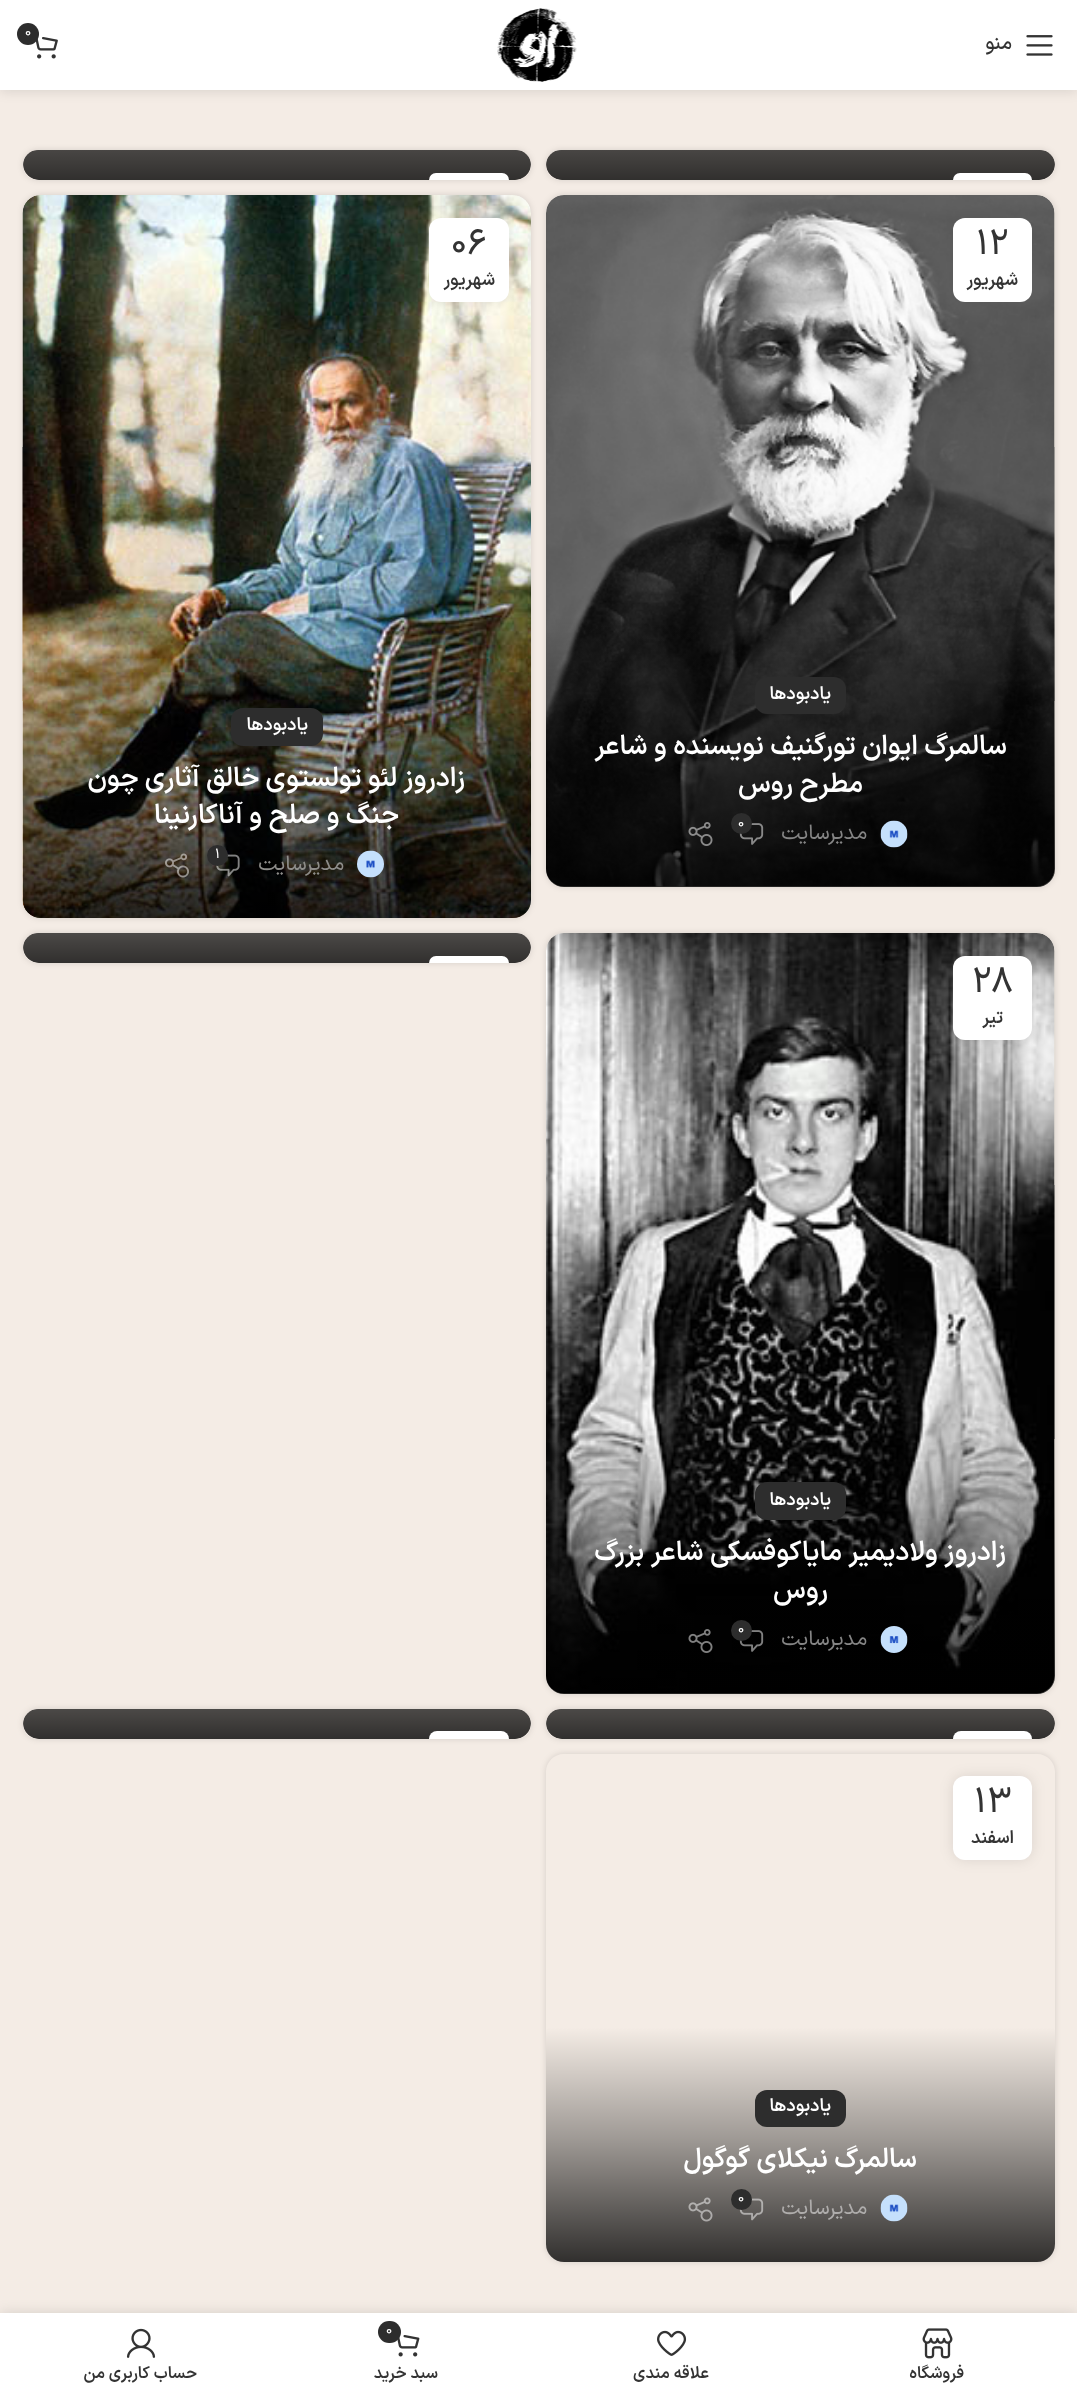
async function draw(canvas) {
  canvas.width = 1077
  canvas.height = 2395
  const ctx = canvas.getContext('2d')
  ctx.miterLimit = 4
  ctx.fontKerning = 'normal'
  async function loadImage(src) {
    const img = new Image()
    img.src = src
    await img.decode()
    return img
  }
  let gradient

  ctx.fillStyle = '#f4ece5'
  ctx.fillRect(0, 0, 1077, 2395)
  ctx.fillStyle = '#0000001a'
  ctx.filter = 'blur(6px)'
  ctx.beginPath()
  ctx.rect(0, 2, 1077, 90)
  ctx.fill()
  ctx.filter = 'none'
  ctx.fillStyle = '#fff'
  ctx.fillRect(0, 0, 1077, 90)
  ctx.drawImage(await loadImage('image0.png'), 497, 8, 80, 74)
  ctx.drawImage(await loadImage('image1.png'), 35, 37, 23, 22)
  ctx.fillStyle = '#2d2d2d'
  ctx.beginPath()
  ctx.arc(28, 34, 11, 0, 2 * Math.PI)
  ctx.fill()
  ctx.font = '14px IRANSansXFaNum'
  ctx.fillStyle = '#fff'
  ctx.fillText('0', 25, 36)
  ctx.drawImage(await loadImage('image2.png'), 1026, 35, 27, 21)
  ctx.direction = 'rtl'
  ctx.font = '500 20px IRANSansXFaNum'
  ctx.fillStyle = '#333'
  ctx.fillText('منو', 1012, 49)
  ctx.save()
  ctx.beginPath()
  ctx.moveTo(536, 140)
  ctx.lineTo(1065, 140)
  ctx.lineTo(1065, 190)
  ctx.lineTo(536, 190)
  ctx.closePath()
  ctx.moveTo(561, 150)
  ctx.lineTo(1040, 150)
  ctx.bezierCurveTo(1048.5, 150, 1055, 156.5, 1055, 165)
  ctx.bezierCurveTo(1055, 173.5, 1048.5, 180, 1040, 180)
  ctx.lineTo(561, 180)
  ctx.bezierCurveTo(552.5, 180, 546, 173.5, 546, 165)
  ctx.bezierCurveTo(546, 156.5, 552.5, 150, 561, 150)
  ctx.closePath()
  ctx.clip('evenodd')
  ctx.fillStyle = '#0000001f'
  ctx.filter = 'blur(3px)'
  ctx.beginPath()
  ctx.roundRect(546, 150, 509, 30, 15)
  ctx.fill()
  ctx.filter = 'none'
  ctx.restore()
  ctx.save()
  ctx.beginPath()
  ctx.roundRect(546, 150, 509, 30, 15)
  ctx.clip()
  gradient = ctx.createLinearGradient(800, -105, 800, 180)
  gradient.addColorStop(0.05, '#00000000')
  gradient.addColorStop(0.5, '#00000059')
  gradient.addColorStop(1, '#000000cc')
  ctx.fillStyle = gradient
  ctx.beginPath()
  ctx.roundRect(546, 150, 509, 30, [15, 15, 18, 18])
  ctx.fill()
  ctx.restore()
  ctx.fillStyle = '#fff'
  ctx.beginPath()
  ctx.roundRect(953, 173, 79, 7, [12, 12, 0, 0])
  ctx.fill()
  ctx.save()
  ctx.beginPath()
  ctx.moveTo(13, 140)
  ctx.lineTo(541, 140)
  ctx.lineTo(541, 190)
  ctx.lineTo(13, 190)
  ctx.closePath()
  ctx.moveTo(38, 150)
  ctx.lineTo(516, 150)
  ctx.bezierCurveTo(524.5, 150, 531, 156.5, 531, 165)
  ctx.bezierCurveTo(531, 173.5, 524.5, 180, 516, 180)
  ctx.lineTo(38, 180)
  ctx.bezierCurveTo(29.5, 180, 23, 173.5, 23, 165)
  ctx.bezierCurveTo(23, 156.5, 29.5, 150, 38, 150)
  ctx.closePath()
  ctx.clip('evenodd')
  ctx.fillStyle = '#0000001f'
  ctx.filter = 'blur(3px)'
  ctx.beginPath()
  ctx.roundRect(23, 150, 508, 30, 15)
  ctx.fill()
  ctx.filter = 'none'
  ctx.restore()
  ctx.save()
  ctx.beginPath()
  ctx.roundRect(23, 150, 508, 30, 15)
  ctx.clip()
  gradient = ctx.createLinearGradient(277, -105, 277, 180)
  gradient.addColorStop(0.05, '#00000000')
  gradient.addColorStop(0.5, '#00000059')
  gradient.addColorStop(1, '#000000cc')
  ctx.fillStyle = gradient
  ctx.beginPath()
  ctx.roundRect(23, 150, 508, 30, [15, 15, 18, 18])
  ctx.fill()
  ctx.restore()
  ctx.beginPath()
  ctx.roundRect(429, 173, 80, 7, [12, 12, 0, 0])
  ctx.fill()
  ctx.fillStyle = '#0000001f'
  ctx.filter = 'blur(3px)'
  ctx.beginPath()
  ctx.roundRect(546, 195, 509, 692, 18)
  ctx.fill()
  ctx.filter = 'none'
  ctx.drawImage(await loadImage('image3.png'), 546, 195, 509, 692)
  ctx.fillStyle = '#fff'
  ctx.beginPath()
  ctx.roundRect(953, 218, 79, 84, 12)
  ctx.fill()
  ctx.direction = 'ltr'
  ctx.font = '36px IRANSansXFaNum'
  ctx.fillStyle = '#333'
  ctx.fillText('12', 976, 254)
  ctx.direction = 'rtl'
  ctx.font = '600 18px IRANSansXFaNum'
  ctx.fillText('شهریور', 1018, 285)
  gradient = ctx.createLinearGradient(800, 602, 800, 887)
  gradient.addColorStop(0.05, '#00000000')
  gradient.addColorStop(0.5, '#00000059')
  gradient.addColorStop(1, '#000000cc')
  ctx.fillStyle = gradient
  ctx.beginPath()
  ctx.roundRect(546, 602, 509, 285, 18)
  ctx.fill()
  ctx.fillStyle = '#2d2d2d'
  ctx.beginPath()
  ctx.roundRect(755, 677, 91, 37, 12)
  ctx.fill()
  ctx.fillStyle = '#fff'
  ctx.fillText('یادبودها', 831, 699)
  ctx.font = '600 27px IRANSansXFaNum'
  ctx.fillText('سالمرگ ایوان تورگنیف نویسنده و شاعر', 1007, 754)
  ctx.fillText('مطرح روس', 863, 792)
  ctx.drawImage(await loadImage('image4.png'), 880, 820, 28, 28)
  ctx.font = '21px IRANSansXFaNum'
  ctx.fillStyle = '#858585'
  ctx.fillText('مدیرسایت', 867, 839)
  ctx.drawImage(await loadImage('image5.png'), 739, 823, 25, 22)
  ctx.fillStyle = '#2d2d2d'
  ctx.beginPath()
  ctx.arc(741.5, 823.5, 10.5, 0, 2 * Math.PI)
  ctx.fill()
  ctx.direction = 'ltr'
  ctx.font = '14px IRANSansXFaNum'
  ctx.fillStyle = '#fff'
  ctx.fillText('0', 738, 827)
  ctx.drawImage(await loadImage('image6.png'), 688, 822, 25, 24)
  ctx.fillStyle = '#0000001f'
  ctx.filter = 'blur(3px)'
  ctx.beginPath()
  ctx.roundRect(23, 195, 508, 723, 18)
  ctx.fill()
  ctx.filter = 'none'
  ctx.drawImage(await loadImage('image7.png'), 22, 195, 509, 723)
  ctx.fillStyle = '#0000001a'
  ctx.filter = 'blur(7px)'
  ctx.beginPath()
  ctx.roundRect(429, 218, 80, 84, 12)
  ctx.fill()
  ctx.filter = 'none'
  ctx.fillStyle = '#fff'
  ctx.beginPath()
  ctx.roundRect(429, 218, 80, 84, 12)
  ctx.fill()
  ctx.font = '36px IRANSansXFaNum'
  ctx.fillStyle = '#333'
  ctx.fillText('06', 451, 254)
  ctx.direction = 'rtl'
  ctx.font = '600 18px IRANSansXFaNum'
  ctx.fillText('شهریور', 495, 285)
  gradient = ctx.createLinearGradient(277, 633, 277, 918)
  gradient.addColorStop(0.05, '#00000000')
  gradient.addColorStop(0.5, '#00000059')
  gradient.addColorStop(1, '#000000cc')
  ctx.fillStyle = gradient
  ctx.beginPath()
  ctx.roundRect(23, 633, 508, 285, 18)
  ctx.fill()
  ctx.fillStyle = '#2d2d2d'
  ctx.beginPath()
  ctx.roundRect(231, 708, 92, 38, 12)
  ctx.fill()
  ctx.fillStyle = '#fff'
  ctx.fillText('یادبودها', 308, 730)
  ctx.font = '600 27px IRANSansXFaNum'
  ctx.fillText('زادروز لئو تولستوی خالق آثاری چون', 465, 786)
  ctx.fillText('جنگ و صلح و آناکارنینا', 399, 823)
  ctx.drawImage(await loadImage('image8.png'), 216, 854, 24, 23)
  ctx.fillStyle = '#2d2d2d'
  ctx.beginPath()
  ctx.arc(217.5, 855.5, 10.5, 0, 2 * Math.PI)
  ctx.fill()
  ctx.direction = 'ltr'
  ctx.font = '14px IRANSansXFaNum'
  ctx.fillStyle = '#fff'
  ctx.fillText('1', 215, 858)
  ctx.drawImage(await loadImage('image9.png'), 357, 850, 27, 28)
  ctx.direction = 'rtl'
  ctx.font = '21px IRANSansXFaNum'
  ctx.fillStyle = '#8e8d8a'
  ctx.fillText('مدیرسایت', 344, 870)
  ctx.drawImage(await loadImage('image10.png'), 165, 853, 24, 25)
  ctx.save()
  ctx.beginPath()
  ctx.moveTo(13, 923)
  ctx.lineTo(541, 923)
  ctx.lineTo(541, 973)
  ctx.lineTo(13, 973)
  ctx.closePath()
  ctx.moveTo(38, 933)
  ctx.lineTo(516, 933)
  ctx.bezierCurveTo(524.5, 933, 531, 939.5, 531, 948)
  ctx.bezierCurveTo(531, 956.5, 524.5, 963, 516, 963)
  ctx.lineTo(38, 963)
  ctx.bezierCurveTo(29.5, 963, 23, 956.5, 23, 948)
  ctx.bezierCurveTo(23, 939.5, 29.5, 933, 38, 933)
  ctx.closePath()
  ctx.clip('evenodd')
  ctx.fillStyle = '#0000001f'
  ctx.filter = 'blur(3px)'
  ctx.beginPath()
  ctx.roundRect(23, 933, 508, 30, 15)
  ctx.fill()
  ctx.filter = 'none'
  ctx.restore()
  ctx.save()
  ctx.beginPath()
  ctx.roundRect(23, 933, 508, 30, 15)
  ctx.clip()
  gradient = ctx.createLinearGradient(277, 716, 277, 963)
  gradient.addColorStop(0.05, '#00000000')
  gradient.addColorStop(0.5, '#00000059')
  gradient.addColorStop(1, '#000000cc')
  ctx.fillStyle = gradient
  ctx.beginPath()
  ctx.roundRect(23, 933, 508, 30, [15, 15, 18, 18])
  ctx.fill()
  ctx.restore()
  ctx.fillStyle = '#fff'
  ctx.beginPath()
  ctx.roundRect(429, 956, 80, 7, [12, 12, 0, 0])
  ctx.fill()
  ctx.fillStyle = '#0000001f'
  ctx.filter = 'blur(3px)'
  ctx.beginPath()
  ctx.roundRect(546, 933, 509, 761, 18)
  ctx.fill()
  ctx.filter = 'none'
  ctx.drawImage(await loadImage('image11.png'), 546, 933, 509, 761)
  ctx.fillStyle = '#0000001a'
  ctx.filter = 'blur(7px)'
  ctx.beginPath()
  ctx.roundRect(953, 956, 79, 84, 12)
  ctx.fill()
  ctx.filter = 'none'
  ctx.fillStyle = '#fff'
  ctx.beginPath()
  ctx.roundRect(953, 956, 79, 84, 12)
  ctx.fill()
  ctx.direction = 'ltr'
  ctx.font = '36px IRANSansXFaNum'
  ctx.fillStyle = '#333'
  ctx.fillText('28', 972, 992)
  ctx.direction = 'rtl'
  ctx.font = '600 18px IRANSansXFaNum'
  ctx.fillText('تیر', 1003, 1023)
  gradient = ctx.createLinearGradient(800, 1407, 800, 1694)
  gradient.addColorStop(0.05, '#00000000')
  gradient.addColorStop(0.5, '#00000059')
  gradient.addColorStop(1, '#000000cc')
  ctx.fillStyle = gradient
  ctx.beginPath()
  ctx.roundRect(546, 1407, 509, 287, 18)
  ctx.fill()
  ctx.fillStyle = '#2d2d2d'
  ctx.beginPath()
  ctx.roundRect(755, 1482, 91, 38, 12)
  ctx.fill()
  ctx.fillStyle = '#fff'
  ctx.fillText('یادبودها', 831, 1505)
  ctx.font = '600 27px IRANSansXFaNum'
  ctx.fillText('زادروز ولادیمیر مایاکوفسکی شاعر بزرگ', 1006, 1560)
  ctx.fillText('روس', 828, 1598)
  ctx.drawImage(await loadImage('image12.png'), 880, 1626, 28, 27)
  ctx.font = '21px IRANSansXFaNum'
  ctx.fillStyle = '#858585'
  ctx.fillText('مدیرسایت', 867, 1645)
  ctx.drawImage(await loadImage('image13.png'), 739, 1630, 25, 22)
  ctx.fillStyle = '#2d2d2d'
  ctx.beginPath()
  ctx.arc(741.5, 1630.5, 10.5, 0, 2 * Math.PI)
  ctx.fill()
  ctx.direction = 'ltr'
  ctx.font = '14px IRANSansXFaNum'
  ctx.fillStyle = '#fff'
  ctx.fillText('0', 738, 1633)
  ctx.drawImage(await loadImage('image14.png'), 688, 1629, 25, 24)
  ctx.save()
  ctx.beginPath()
  ctx.moveTo(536, 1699)
  ctx.lineTo(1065, 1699)
  ctx.lineTo(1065, 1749)
  ctx.lineTo(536, 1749)
  ctx.closePath()
  ctx.moveTo(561, 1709)
  ctx.lineTo(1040, 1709)
  ctx.bezierCurveTo(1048.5, 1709, 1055, 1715.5, 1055, 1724)
  ctx.bezierCurveTo(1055, 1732.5, 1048.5, 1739, 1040, 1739)
  ctx.lineTo(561, 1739)
  ctx.bezierCurveTo(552.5, 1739, 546, 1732.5, 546, 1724)
  ctx.bezierCurveTo(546, 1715.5, 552.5, 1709, 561, 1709)
  ctx.closePath()
  ctx.clip('evenodd')
  ctx.fillStyle = '#0000001f'
  ctx.filter = 'blur(3px)'
  ctx.beginPath()
  ctx.roundRect(546, 1709, 509, 30, 15)
  ctx.fill()
  ctx.filter = 'none'
  ctx.restore()
  ctx.save()
  ctx.beginPath()
  ctx.roundRect(546, 1709, 509, 30, 15)
  ctx.clip()
  gradient = ctx.createLinearGradient(800, 1491, 800, 1739)
  gradient.addColorStop(0.05, '#00000000')
  gradient.addColorStop(0.5, '#00000059')
  gradient.addColorStop(1, '#000000cc')
  ctx.fillStyle = gradient
  ctx.beginPath()
  ctx.roundRect(546, 1709, 509, 30, [15, 15, 18, 18])
  ctx.fill()
  ctx.restore()
  ctx.beginPath()
  ctx.roundRect(953, 1731, 79, 8, [12, 12, 0, 0])
  ctx.fill()
  ctx.save()
  ctx.beginPath()
  ctx.moveTo(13, 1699)
  ctx.lineTo(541, 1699)
  ctx.lineTo(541, 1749)
  ctx.lineTo(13, 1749)
  ctx.closePath()
  ctx.moveTo(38, 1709)
  ctx.lineTo(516, 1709)
  ctx.bezierCurveTo(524.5, 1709, 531, 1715.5, 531, 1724)
  ctx.bezierCurveTo(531, 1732.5, 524.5, 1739, 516, 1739)
  ctx.lineTo(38, 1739)
  ctx.bezierCurveTo(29.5, 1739, 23, 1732.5, 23, 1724)
  ctx.bezierCurveTo(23, 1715.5, 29.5, 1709, 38, 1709)
  ctx.closePath()
  ctx.clip('evenodd')
  ctx.fillStyle = '#0000001f'
  ctx.filter = 'blur(3px)'
  ctx.beginPath()
  ctx.roundRect(23, 1709, 508, 30, 15)
  ctx.fill()
  ctx.filter = 'none'
  ctx.restore()
  ctx.save()
  ctx.beginPath()
  ctx.roundRect(23, 1709, 508, 30, 15)
  ctx.clip()
  gradient = ctx.createLinearGradient(277, 1491, 277, 1739)
  gradient.addColorStop(0.05, '#00000000')
  gradient.addColorStop(0.5, '#00000059')
  gradient.addColorStop(1, '#000000cc')
  ctx.fillStyle = gradient
  ctx.beginPath()
  ctx.roundRect(23, 1709, 508, 30, [15, 15, 18, 18])
  ctx.fill()
  ctx.restore()
  ctx.beginPath()
  ctx.roundRect(429, 1731, 80, 8, [12, 12, 0, 0])
  ctx.fill()
  ctx.save()
  ctx.beginPath()
  ctx.moveTo(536, 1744)
  ctx.lineTo(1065, 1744)
  ctx.lineTo(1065, 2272)
  ctx.lineTo(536, 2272)
  ctx.closePath()
  ctx.moveTo(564, 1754)
  ctx.lineTo(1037, 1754)
  ctx.bezierCurveTo(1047, 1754, 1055, 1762, 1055, 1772)
  ctx.lineTo(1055, 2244)
  ctx.bezierCurveTo(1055, 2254, 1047, 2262, 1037, 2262)
  ctx.lineTo(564, 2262)
  ctx.bezierCurveTo(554, 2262, 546, 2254, 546, 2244)
  ctx.lineTo(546, 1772)
  ctx.bezierCurveTo(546, 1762, 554, 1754, 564, 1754)
  ctx.closePath()
  ctx.clip('evenodd')
  ctx.fillStyle = '#0000001f'
  ctx.filter = 'blur(3px)'
  ctx.beginPath()
  ctx.roundRect(546, 1754, 509, 508, 18)
  ctx.fill()
  ctx.filter = 'none'
  ctx.restore()
  ctx.fillStyle = '#0000001a'
  ctx.filter = 'blur(7px)'
  ctx.beginPath()
  ctx.roundRect(953, 1776, 79, 84, 12)
  ctx.fill()
  ctx.filter = 'none'
  ctx.fillStyle = '#fff'
  ctx.beginPath()
  ctx.roundRect(953, 1776, 79, 84, 12)
  ctx.fill()
  ctx.font = '36px IRANSansXFaNum'
  ctx.fillStyle = '#333'
  ctx.fillText('13', 974, 1812)
  ctx.direction = 'rtl'
  ctx.font = '600 18px IRANSansXFaNum'
  ctx.fillText('اسفند', 1014, 1843)
  gradient = ctx.createLinearGradient(800, 2015, 800, 2262)
  gradient.addColorStop(0.05, '#00000000')
  gradient.addColorStop(0.5, '#00000059')
  gradient.addColorStop(1, '#000000cc')
  ctx.fillStyle = gradient
  ctx.beginPath()
  ctx.roundRect(546, 2015, 509, 247, 18)
  ctx.fill()
  ctx.fillStyle = '#2d2d2d'
  ctx.beginPath()
  ctx.roundRect(755, 2090, 91, 37, 12)
  ctx.fill()
  ctx.fillStyle = '#fff'
  ctx.fillText('یادبودها', 831, 2111)
  ctx.font = '600 27px IRANSansXFaNum'
  ctx.fillText('سالمرگ نیکلای گوگول', 917, 2167)
  ctx.drawImage(await loadImage('image15.png'), 880, 2194, 28, 28)
  ctx.font = '21px IRANSansXFaNum'
  ctx.fillStyle = '#afadac'
  ctx.fillText('مدیرسایت', 867, 2214)
  ctx.drawImage(await loadImage('image16.png'), 739, 2198, 25, 23)
  ctx.fillStyle = '#2d2d2d'
  ctx.beginPath()
  ctx.arc(741.5, 2199.5, 10.5, 0, 2 * Math.PI)
  ctx.fill()
  ctx.direction = 'ltr'
  ctx.font = '14px IRANSansXFaNum'
  ctx.fillStyle = '#fff'
  ctx.fillText('0', 738, 2202)
  ctx.drawImage(await loadImage('image17.png'), 688, 2197, 25, 25)
  ctx.fillStyle = '#0000001f'
  ctx.filter = 'blur(7px)'
  ctx.beginPath()
  ctx.rect(0, 2313, 1077, 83)
  ctx.fill()
  ctx.filter = 'none'
  ctx.fillStyle = '#fff'
  ctx.fillRect(0, 2313, 1077, 82)
  ctx.drawImage(await loadImage('image18.png'), 922, 2328, 31, 31)
  ctx.direction = 'rtl'
  ctx.font = '600 16.5px IRANSansXFaNum'
  ctx.fillStyle = '#333'
  ctx.fillText('فروشگاه', 964, 2378)
  ctx.drawImage(await loadImage('image19.png'), 657, 2330, 30, 26)
  ctx.fillText('علاقه مندی', 709, 2378)
  ctx.drawImage(await loadImage('image20.png'), 397, 2335, 23, 22)
  ctx.fillStyle = '#2d2d2d'
  ctx.beginPath()
  ctx.roundRect(378, 2321, 23, 22, 11)
  ctx.fill()
  ctx.direction = 'ltr'
  ctx.font = '14px IRANSansXFaNum'
  ctx.fillStyle = '#fff'
  ctx.fillText('0', 386, 2334)
  ctx.direction = 'rtl'
  ctx.font = '600 16.5px IRANSansXFaNum'
  ctx.fillStyle = '#333'
  ctx.fillText('سبد خرید', 438, 2378)
  ctx.drawImage(await loadImage('image21.png'), 126, 2328, 30, 30)
  ctx.fillText('حساب کاربری من', 197, 2378)
}

draw(document.querySelector('canvas'))
